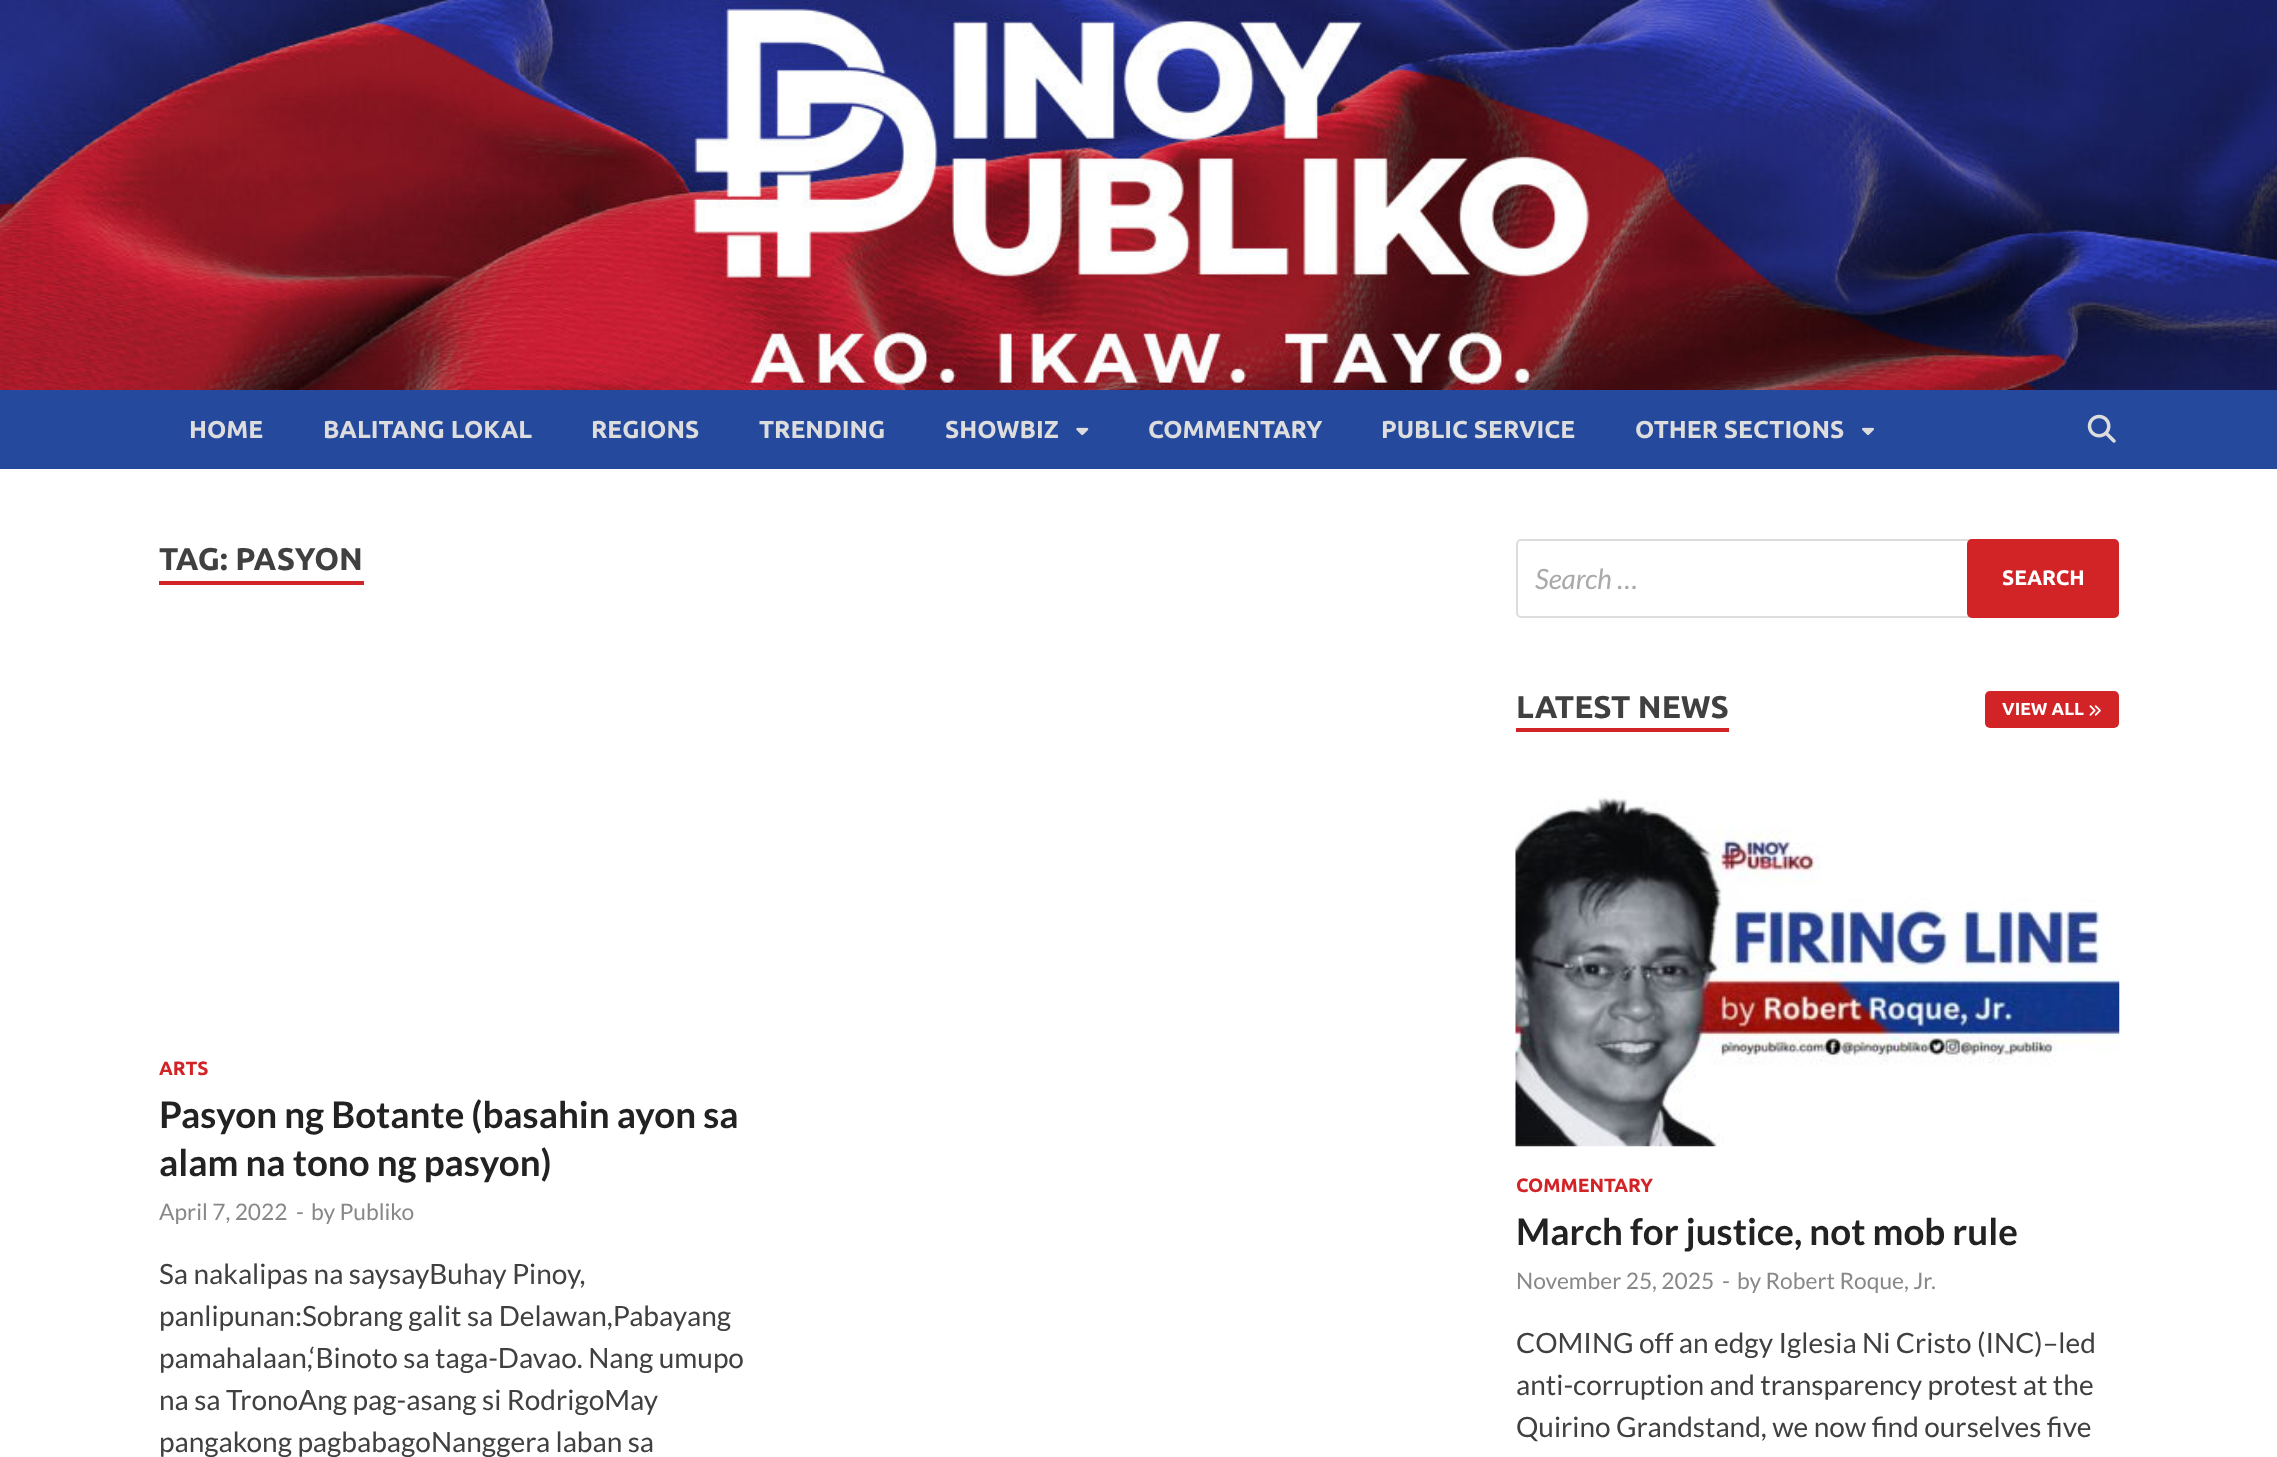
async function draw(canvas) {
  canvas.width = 2277
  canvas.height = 1457
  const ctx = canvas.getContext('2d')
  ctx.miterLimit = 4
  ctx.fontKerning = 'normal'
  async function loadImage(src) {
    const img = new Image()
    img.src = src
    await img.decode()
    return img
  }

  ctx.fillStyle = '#fff'
  ctx.fillRect(0, 0, 2277, 1457)
  ctx.drawImage(await loadImage('image0.png'), 0, 0, 2277, 390)
  ctx.fillStyle = '#25499d'
  ctx.fillRect(0, 390, 2277, 79)
  ctx.font = 'bold 24.5px Ubuntu'
  ctx.fillStyle = '#ddd'
  ctx.fillText('HOME', 189, 438)
  ctx.fillText('BALITANG LOKAL', 323, 438)
  ctx.fillText('REGIONS', 591, 438)
  ctx.fillText('TRENDING', 759, 438)
  ctx.fillText('SHOWBIZ', 945, 438)
  ctx.drawImage(await loadImage('image1.png'), 1076, 427, 13, 9)
  ctx.fillText('COMMENTARY', 1148, 438)
  ctx.fillText('PUBLIC SERVICE', 1381, 438)
  ctx.fillText('OTHER SECTIONS', 1635, 438)
  ctx.drawImage(await loadImage('image2.png'), 1862, 427, 12, 9)
  ctx.drawImage(await loadImage('image3.png'), 2087, 414, 29, 29)
  ctx.font = 'bold 31.5px Ubuntu'
  ctx.fillStyle = '#404040'
  ctx.fillText('TAG: PASYON', 159, 570)
  ctx.fillStyle = '#d22327'
  ctx.fillRect(159, 581, 205, 4)
  ctx.font = 'bold 19.25px Ubuntu'
  ctx.fillText('ARTS', 159, 1075)
  ctx.font = 'bold 36.75px Lato'
  ctx.fillStyle = '#222'
  ctx.fillText('Pasyon ng Botante (basahin ayon sa', 159, 1128)
  ctx.fillText('alam na tono ng pasyon)', 159, 1176)
  ctx.font = '22.75px Lato'
  ctx.fillStyle = '#888'
  ctx.fillText('April 7, 2022', 159, 1220)
  ctx.fillText('-', 296, 1220)
  ctx.fillText('by Publiko', 311, 1220)
  ctx.font = '28px Lato'
  ctx.fillStyle = '#404040'
  ctx.fillText('Sa nakalipas na saysayBuhay Pinoy,', 159, 1284)
  ctx.fillText('panlipunan:Sobrang galit sa Delawan,Pabayang', 159, 1326)
  ctx.fillText('pamahalaan,‘Binoto sa taga-Davao. Nang umupo', 159, 1368)
  ctx.fillText('na sa TronoAng pag-asang si RodrigoMay', 159, 1410)
  ctx.fillText('pangakong pagbabagoNanggera laban sa', 159, 1452)
  ctx.beginPath()
  ctx.roundRect(1517, 540, 601, 77, 4)
  ctx.strokeStyle = '#ddd'
  ctx.lineWidth = 2
  ctx.stroke()
  ctx.font = 'italic 28px Lato'
  ctx.fillStyle = '#aaa'
  ctx.fillText('Search …', 1535, 589)
  ctx.fillStyle = '#d22327'
  ctx.beginPath()
  ctx.roundRect(1967, 539, 152, 79, 5)
  ctx.fill()
  ctx.font = 'bold 21px Ubuntu'
  ctx.fillStyle = '#fff'
  ctx.fillText('SEARCH', 2002, 585)
  ctx.fillStyle = '#d22327'
  ctx.fillRect(1516, 728, 213, 4)
  ctx.font = 'bold 31.5px Ubuntu'
  ctx.fillStyle = '#404040'
  ctx.fillText('LATEST NEWS', 1516, 718)
  ctx.fillStyle = '#d22327'
  ctx.beginPath()
  ctx.roundRect(1985, 691, 134, 37, 5)
  ctx.fill()
  ctx.font = 'bold 17.5px Ubuntu'
  ctx.fillStyle = '#fff'
  ctx.fillText('VIEW ALL', 2002, 715)
  ctx.drawImage(await loadImage('image4.png'), 2089, 705, 12, 11)
  ctx.drawImage(await loadImage('image5.png'), 1515, 791, 605, 356)
  ctx.font = 'bold 19.25px Ubuntu'
  ctx.fillStyle = '#d22327'
  ctx.fillText('COMMENTARY', 1516, 1192)
  ctx.font = 'bold 36.75px Lato'
  ctx.fillStyle = '#222'
  ctx.fillText('March for justice, not mob rule', 1516, 1245)
  ctx.font = '22.75px Lato'
  ctx.fillStyle = '#888'
  ctx.fillText('November 25, 2025', 1516, 1289)
  ctx.fillText('-', 1722, 1289)
  ctx.fillText('by Robert Roque, Jr.', 1737, 1289)
  ctx.font = '28px Lato'
  ctx.fillStyle = '#404040'
  ctx.fillText('COMING off an edgy Iglesia Ni Cristo (INC)–led', 1516, 1353)
  ctx.fillText('anti-corruption and transparency protest at the', 1516, 1395)
  ctx.fillText('Quirino Grandstand, we now find ourselves five', 1516, 1437)
}

draw(document.querySelector('canvas'))
